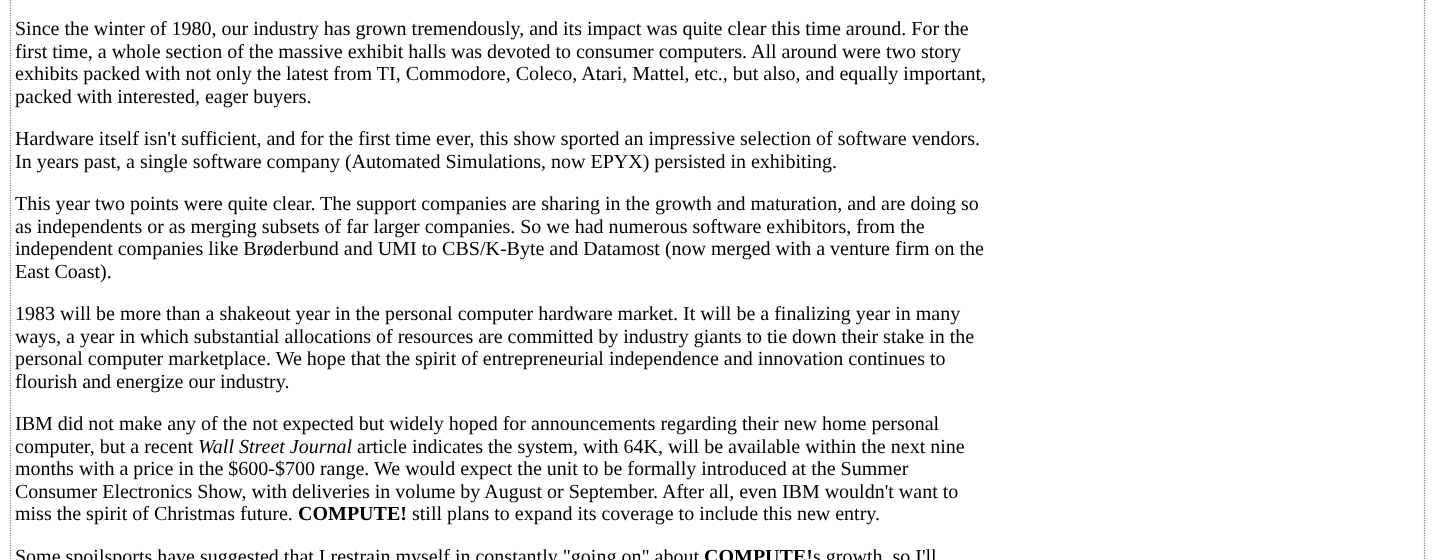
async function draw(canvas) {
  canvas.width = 1434
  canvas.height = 560
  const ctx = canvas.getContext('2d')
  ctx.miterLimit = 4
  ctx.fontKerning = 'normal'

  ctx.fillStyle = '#fff'
  ctx.fillRect(0, 0, 1434, 560)
  ctx.beginPath()
  ctx.moveTo(1424.5, -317.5)
  ctx.lineTo(1424.5, 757.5)
  ctx.strokeStyle = '#808080'
  ctx.lineWidth = 1.2
  ctx.setLineDash([1.25, 1.25])
  ctx.stroke()
  ctx.beginPath()
  ctx.moveTo(10.5, -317.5)
  ctx.lineTo(10.5, 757.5)
  ctx.stroke()
  ctx.font = '20px Liberation Serif'
  ctx.fillStyle = '#000'
  ctx.fillText('Since the winter of 1980, our industry has grown tremendously, and its impact was quite clear this time around. For the', 15, 35)
  ctx.fillText('first time, a whole section of the massive exhibit halls was devoted to consumer computers. All around were two story', 15, 58)
  ctx.fillText('exhibits packed with not only the latest from TI, Commodore, Coleco, Atari, Mattel, etc., but also, and equally important,', 15, 80)
  ctx.fillText('packed with interested, eager buyers.', 15, 103)
  ctx.fillText('Hardware itself isn\'t sufficient, and for the first time ever, this show sported an impressive selection of software vendors.', 15, 145)
  ctx.fillText('In years past, a single software company (Automated Simulations, now EPYX) persisted in exhibiting.', 15, 168)
  ctx.fillText('This year two points were quite clear. The support companies are sharing in the growth and maturation, and are doing so', 15, 210)
  ctx.fillText('as independents or as merging subsets of far larger companies. So we had numerous software exhibitors, from the', 15, 233)
  ctx.fillText('independent companies like Brøderbund and UMI to CBS/K-Byte and Datamost (now merged with a venture firm on the', 15, 255)
  ctx.fillText('East Coast).', 15, 278)
  ctx.fillText('1983 will be more than a shakeout year in the personal computer hardware market. It will be a finalizing year in many', 15, 320)
  ctx.fillText('ways, a year in which substantial allocations of resources are committed by industry giants to tie down their stake in the', 15, 343)
  ctx.fillText('personal computer marketplace. We hope that the spirit of entrepreneurial independence and innovation continues to', 15, 365)
  ctx.fillText('flourish and energize our industry.', 15, 388)
  ctx.fillText('IBM did not make any of the not expected but widely hoped for announcements regarding their new home personal', 15, 430)
  ctx.fillText('computer, but a recent', 15, 453)
  ctx.font = 'italic 20px Liberation Serif'
  ctx.fillText('Wall Street Journal', 198, 453)
  ctx.font = '20px Liberation Serif'
  ctx.fillText('article indicates the system, with 64K, will be available within the next nine', 357, 453)
  ctx.fillText('months with a price in the $600-$700 range. We would expect the unit to be formally introduced at the Summer', 15, 475)
  ctx.fillText('Consumer Electronics Show, with deliveries in volume by August or September. After all, even IBM wouldn\'t want to', 15, 498)
  ctx.fillText('miss the spirit of Christmas future.', 15, 520)
  ctx.font = 'bold 20px Liberation Serif'
  ctx.fillText('COMPUTE!', 298, 520)
  ctx.font = '20px Liberation Serif'
  ctx.fillText('still plans to expand its coverage to include this new entry.', 412, 520)
  ctx.fillText('Some spoilsports have suggested that I restrain myself in constantly "going on" about', 15, 563)
  ctx.font = 'bold 20px Liberation Serif'
  ctx.fillText('COMPUTE!', 704, 563)
  ctx.font = '20px Liberation Serif'
  ctx.fillText('s growth, so I\'ll', 813, 563)
}

draw(document.querySelector('canvas'))
